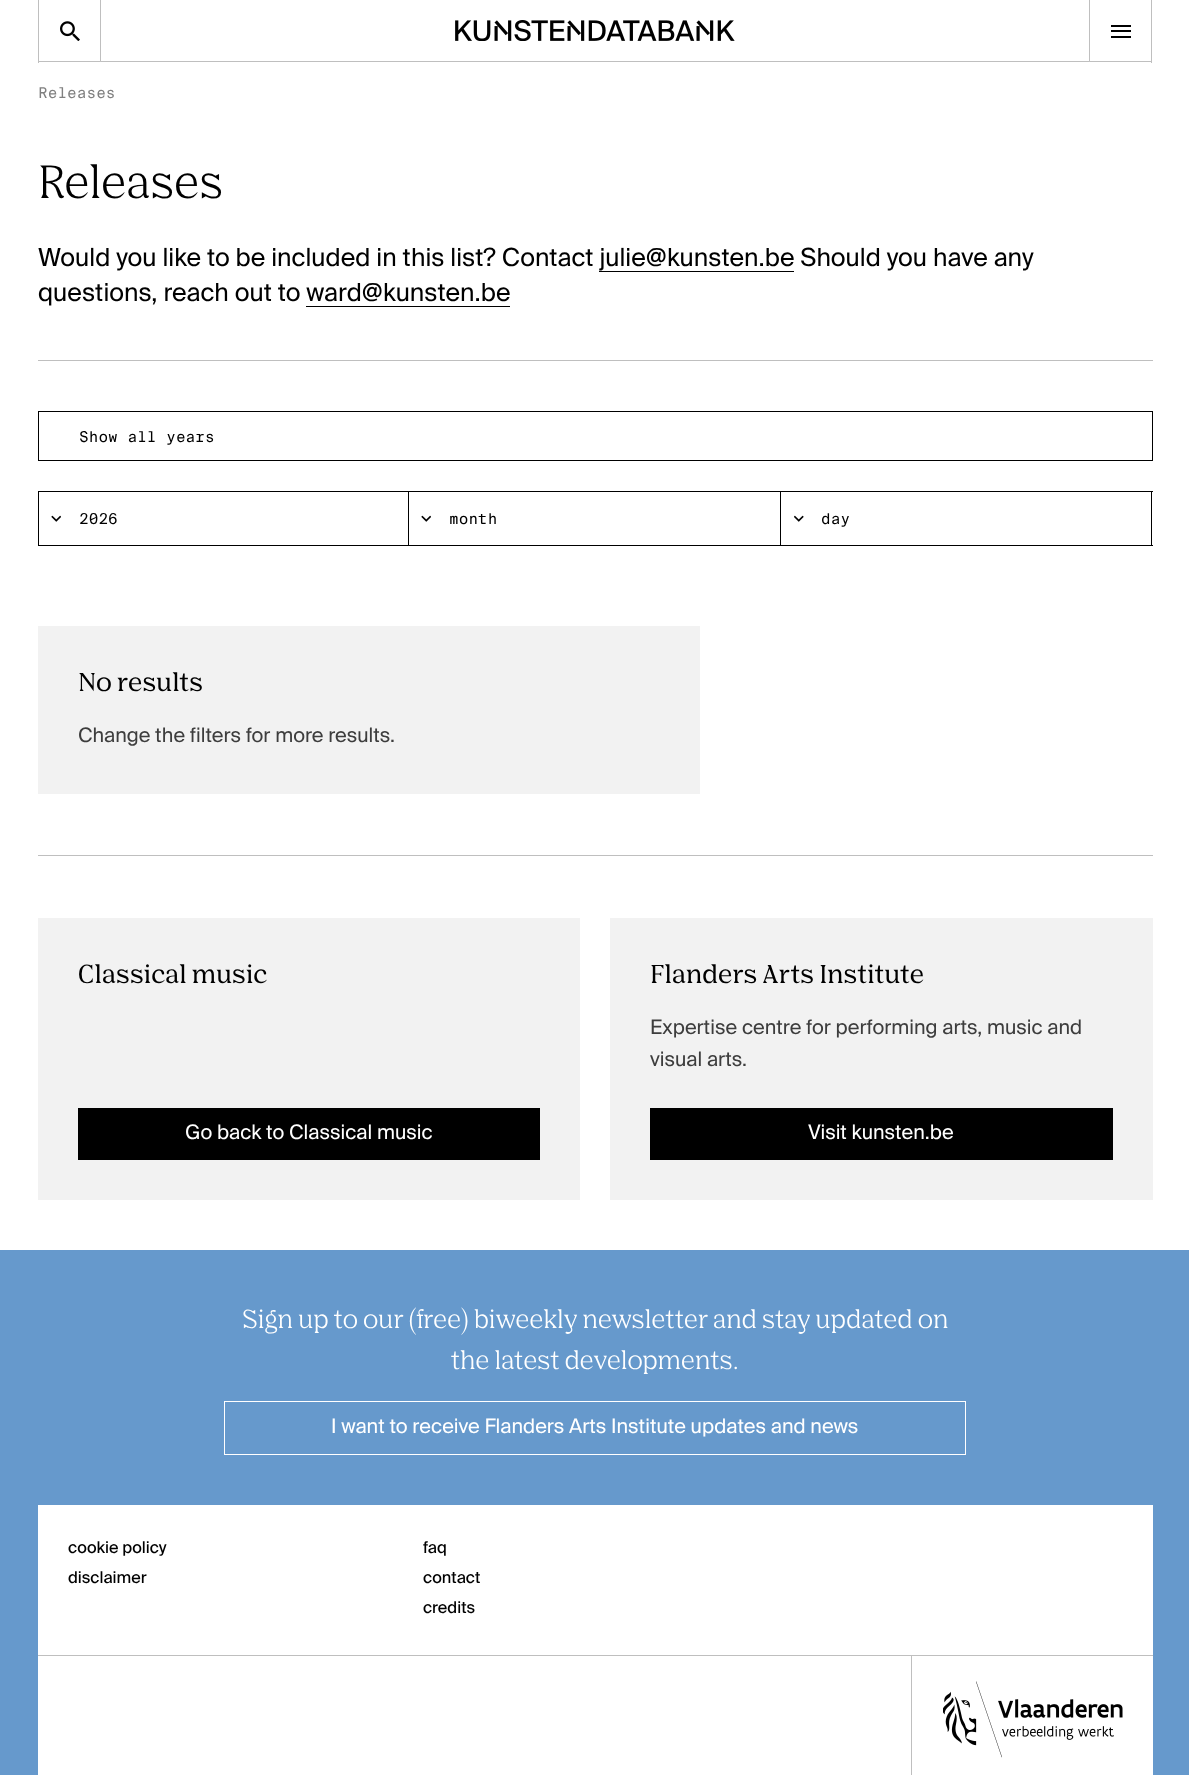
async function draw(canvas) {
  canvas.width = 1189
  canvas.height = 1775
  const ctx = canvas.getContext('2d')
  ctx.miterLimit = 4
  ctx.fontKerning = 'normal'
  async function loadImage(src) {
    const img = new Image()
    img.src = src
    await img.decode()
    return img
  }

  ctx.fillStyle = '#fff'
  ctx.fillRect(0, 0, 1189, 1775)
  ctx.fillStyle = '#bfbfbf'
  ctx.fillRect(1151, 0, 1, 63)
  ctx.fillRect(38, 0, 1, 63)
  ctx.beginPath()
  ctx.moveTo(101, 0)
  ctx.lineTo(101, 62)
  ctx.lineTo(100, 61)
  ctx.lineTo(100, 0)
  ctx.closePath()
  ctx.fill()
  ctx.fillStyle = '#00000040'
  ctx.beginPath()
  ctx.moveTo(101, 62)
  ctx.lineTo(39, 62)
  ctx.lineTo(39, 61)
  ctx.lineTo(100, 61)
  ctx.closePath()
  ctx.fill()
  ctx.drawImage(await loadImage('image0.png'), 60, 21, 20, 20)
  ctx.fillStyle = '#bfbfbf'
  ctx.fillRect(101, 61, 988, 1)
  ctx.drawImage(await loadImage('image1.png'), 455, 20, 280, 21)
  ctx.beginPath()
  ctx.moveTo(1151, 62)
  ctx.lineTo(1089, 62)
  ctx.lineTo(1090, 61)
  ctx.lineTo(1151, 61)
  ctx.closePath()
  ctx.fill()
  ctx.fillStyle = '#00000040'
  ctx.beginPath()
  ctx.moveTo(1089, 62)
  ctx.lineTo(1089, 0)
  ctx.lineTo(1090, 0)
  ctx.lineTo(1090, 61)
  ctx.closePath()
  ctx.fill()
  ctx.fillStyle = '#000'
  ctx.fillRect(1111, 25, 20, 2)
  ctx.fillRect(1111, 30, 20, 2)
  ctx.fillRect(1111, 36, 20, 2)
  ctx.font = '15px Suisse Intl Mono'
  ctx.fillStyle = '#808080'
  ctx.fillText('Releases', 38, 98)
  ctx.font = '45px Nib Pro'
  ctx.fillStyle = '#000'
  ctx.fillText('Releases', 38, 198)
  ctx.font = '25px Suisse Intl'
  ctx.fillText('Would you like to be included in this list? Contact julie@kunsten.be Should you have any', 38, 266)
  ctx.fillRect(599, 271, 195, 1)
  ctx.fillText('questions, reach out to ward@kunsten.be', 38, 301)
  ctx.fillRect(306, 306, 204, 1)
  ctx.fillStyle = '#bfbfbf'
  ctx.fillRect(38, 360, 1115, 1)
  ctx.strokeStyle = '#000'
  ctx.strokeRect(38.5, 411.5, 1114, 49)
  ctx.font = '15px Suisse Intl Mono'
  ctx.fillStyle = '#000'
  ctx.fillText('Show all years', 79, 442)
  ctx.drawImage(await loadImage('image2.png'), 51, 515, 10, 7)
  ctx.strokeRect(38.5, 491.5, 370, 54)
  ctx.fillText('2026', 79, 524)
  ctx.drawImage(await loadImage('image2.png'), 421, 515, 10, 7)
  ctx.fillRect(409, 491, 744, 1)
  ctx.fillRect(780, 491, 1, 55)
  ctx.fillRect(409, 545, 372, 1)
  ctx.fillText('month', 449, 524)
  ctx.drawImage(await loadImage('image3.png'), 794, 515, 10, 7)
  ctx.fillRect(1151, 491, 1, 55)
  ctx.fillRect(781, 545, 372, 1)
  ctx.fillText('day', 821, 524)
  ctx.fillStyle = '#f2f2f2'
  ctx.fillRect(38, 626, 662, 168)
  ctx.font = '600 25px Nib Pro'
  ctx.fillStyle = '#000'
  ctx.fillText('No results', 78, 691)
  ctx.font = '20px Suisse Intl'
  ctx.fillStyle = '#3d3d3d'
  ctx.fillText('Change the filters for more results.', 78, 742)
  ctx.fillStyle = '#bfbfbf'
  ctx.fillRect(38, 855, 1115, 1)
  ctx.fillStyle = '#f2f2f2'
  ctx.fillRect(38, 918, 542, 282)
  ctx.font = '600 25px Nib Pro'
  ctx.fillStyle = '#000'
  ctx.fillText('Classical music', 78, 983)
  ctx.fillRect(78, 1108, 462, 52)
  ctx.font = '20px Suisse Intl'
  ctx.fillStyle = '#fff'
  ctx.fillText('Go back to Classical music', 185, 1139)
  ctx.fillStyle = '#f2f2f2'
  ctx.fillRect(610, 918, 543, 282)
  ctx.font = '600 25px Nib Pro'
  ctx.fillStyle = '#000'
  ctx.fillText('Flanders Arts Institute', 650, 983)
  ctx.font = '20px Suisse Intl'
  ctx.fillStyle = '#3d3d3d'
  ctx.fillText('Expertise centre for performing arts, music and', 650, 1034)
  ctx.fillText('visual arts.', 650, 1066)
  ctx.fillStyle = '#000'
  ctx.fillRect(650, 1108, 463, 52)
  ctx.fillStyle = '#fff'
  ctx.fillText('Visit kunsten.be', 808, 1139)
  ctx.fillStyle = '#69c'
  ctx.fillRect(0, 1250, 1189, 525)
  ctx.font = '25px Nib Pro'
  ctx.fillStyle = '#fff'
  ctx.fillText('Sign up to our (free) biweekly newsletter and stay updated on', 242, 1328)
  ctx.fillText('the latest developments.', 451, 1369)
  ctx.strokeStyle = '#fff'
  ctx.strokeRect(224.5, 1401.5, 741, 53)
  ctx.font = '20px Suisse Intl'
  ctx.fillText('I want to receive Flanders Arts Institute updates and news', 331, 1433)
  ctx.fillRect(38, 1505, 1115, 270)
  ctx.fillStyle = '#bfbfbf'
  ctx.fillRect(38, 1655, 1115, 1)
  ctx.font = '16.25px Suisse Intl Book'
  ctx.fillStyle = '#000'
  ctx.fillText('cookie policy', 68, 1553)
  ctx.fillText('disclaimer', 68, 1583)
  ctx.fillText('faq', 423, 1553)
  ctx.fillText('contact', 423, 1583)
  ctx.fillText('credits', 423, 1613)
  ctx.fillStyle = '#bfbfbf'
  ctx.fillRect(911, 1656, 1, 119)
  ctx.drawImage(await loadImage('image4.png'), 943, 1681, 180, 77)
}

draw(document.querySelector('canvas'))
